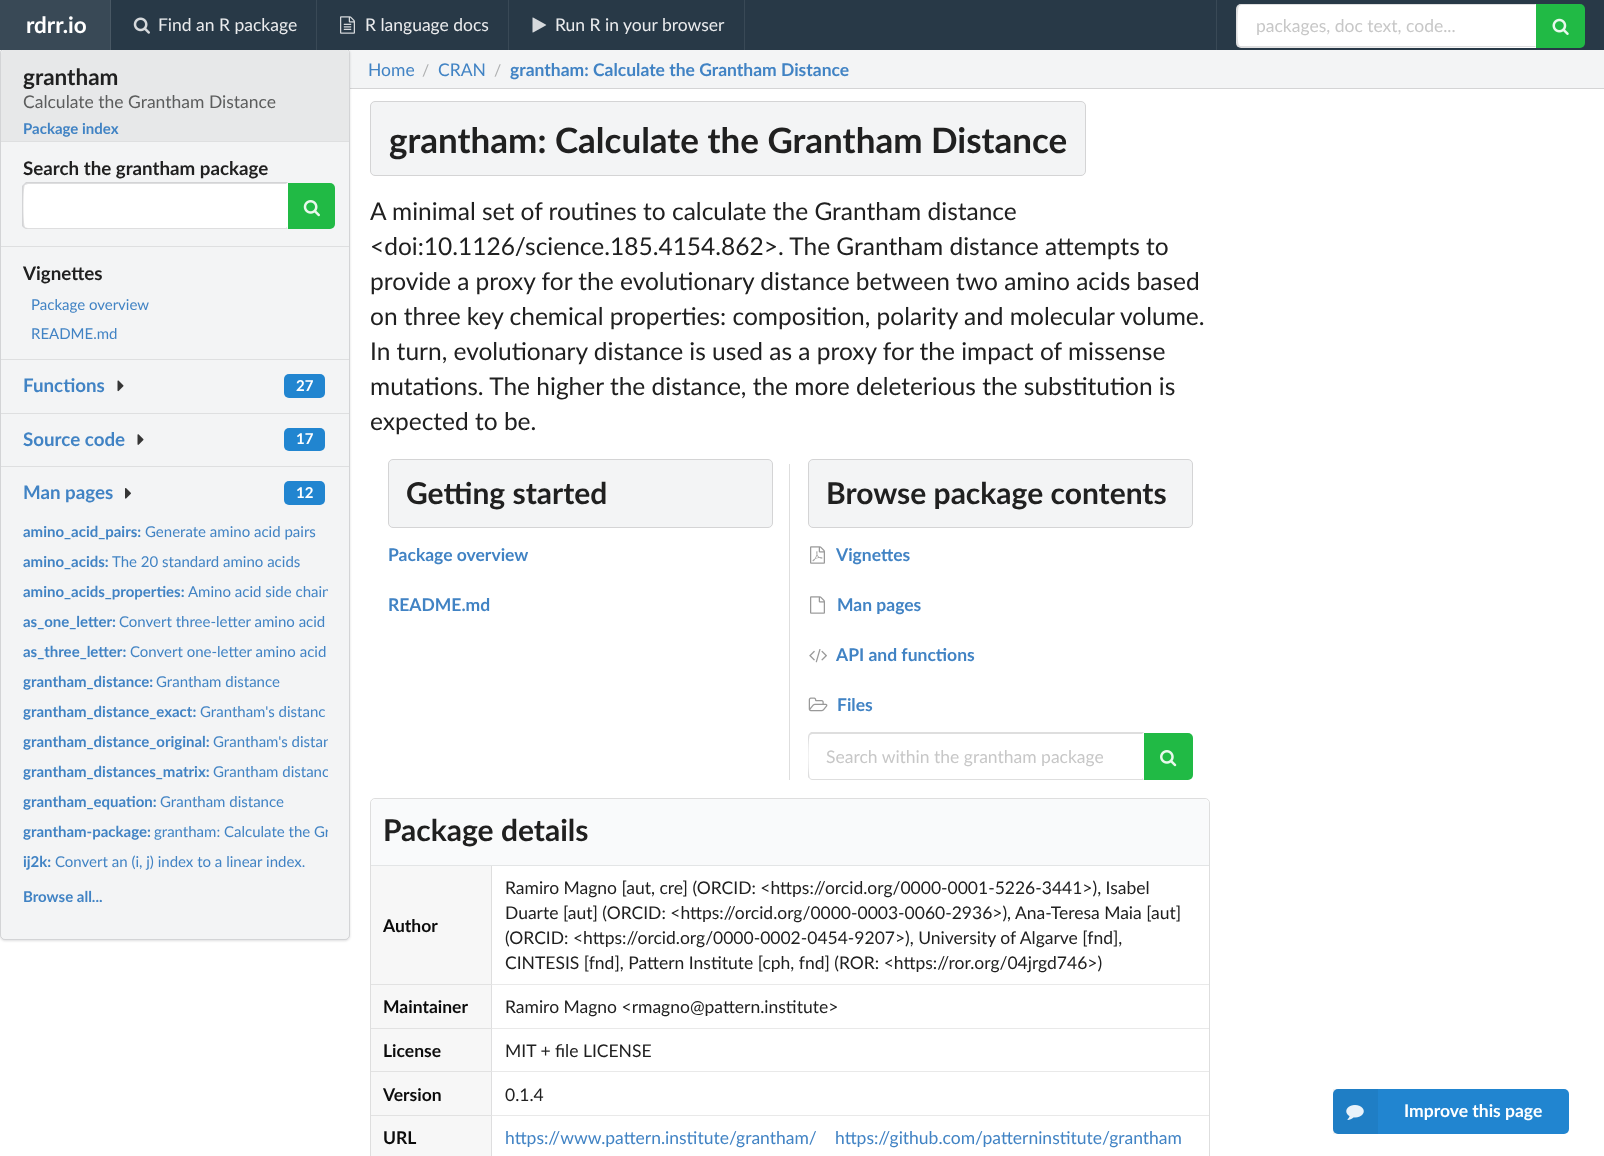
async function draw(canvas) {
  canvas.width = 1604
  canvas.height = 1156
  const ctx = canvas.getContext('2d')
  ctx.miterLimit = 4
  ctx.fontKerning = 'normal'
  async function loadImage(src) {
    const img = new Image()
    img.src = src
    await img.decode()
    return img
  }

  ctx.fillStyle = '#fff'
  ctx.fillRect(0, 0, 1604, 1156)
  ctx.fillStyle = '#f3f4f5'
  ctx.fillRect(350, 50, 1254, 38)
  ctx.fillStyle = '#d4d4d5'
  ctx.fillRect(350, 88, 1254, 1)
  ctx.fillStyle = '#22242626'
  ctx.filter = 'blur(1px)'
  ctx.beginPath()
  ctx.roundRect(0, 49, 350, 892, 5)
  ctx.fill()
  ctx.filter = 'none'
  ctx.fillStyle = '#f3f4f5'
  ctx.beginPath()
  ctx.roundRect(0, 48, 350, 892, 5)
  ctx.fill()
  ctx.beginPath()
  ctx.roundRect(0.5, 48.5, 349, 891, 4.5)
  ctx.strokeStyle = '#22242626'
  ctx.stroke()
  ctx.fillStyle = '#e7e8e9'
  ctx.beginPath()
  ctx.roundRect(1, 49, 348, 92, [5, 5, 0, 0])
  ctx.fill()
  ctx.fillStyle = '#283947'
  ctx.fillRect(111, 0, 1493, 50)
  ctx.fillStyle = '#394956'
  ctx.fillRect(0, 0, 110, 50)
  ctx.font = 'bold 22.5px Lato'
  ctx.fillStyle = '#fff'
  ctx.fillText('rdrr.io', 26, 33)
  ctx.fillStyle = '#495864'
  ctx.fillRect(110, 0, 1, 50)
  ctx.drawImage(await loadImage('image0.png'), 133, 17, 17, 17)
  ctx.font = '17.5px Lato'
  ctx.fillStyle = '#eaebed'
  ctx.fillText('Find an R package', 158, 31)
  ctx.fillStyle = '#394956'
  ctx.fillRect(316, 0, 1, 50)
  ctx.drawImage(await loadImage('image1.png'), 340, 16, 15, 18)
  ctx.fillStyle = '#eaebed'
  ctx.fillText('R language docs', 365, 31)
  ctx.fillStyle = '#394956'
  ctx.fillRect(508, 0, 1, 50)
  ctx.drawImage(await loadImage('image2.png'), 532, 17, 15, 16)
  ctx.fillStyle = '#eaebed'
  ctx.fillText('Run R in your browser', 555, 31)
  ctx.fillStyle = '#394956'
  ctx.fillRect(744, 0, 1, 50)
  ctx.fillRect(1216, 0, 1, 50)
  ctx.fillStyle = '#fff'
  ctx.beginPath()
  ctx.roundRect(1236, 4, 300, 44, [5, 0, 0, 5])
  ctx.fill()
  ctx.fillStyle = '#22242626'
  ctx.beginPath()
  ctx.moveTo(1241, 4)
  ctx.lineTo(1238, 5)
  ctx.lineTo(1239, 6)
  ctx.lineTo(1241, 5)
  ctx.lineTo(1535, 5)
  ctx.lineTo(1536, 4)
  ctx.closePath()
  ctx.fill()
  ctx.beginPath()
  ctx.moveTo(1239, 48)
  ctx.lineTo(1237, 46)
  ctx.lineTo(1239, 45)
  ctx.lineTo(1240, 46)
  ctx.lineTo(1535, 46)
  ctx.lineTo(1536, 47)
  ctx.closePath()
  ctx.fill()
  ctx.beginPath()
  ctx.moveTo(1236, 7)
  ctx.lineTo(1238, 5)
  ctx.lineTo(1239, 6)
  ctx.bezierCurveTo(1237, 8, 1237, 43, 1239, 45)
  ctx.lineTo(1237, 46)
  ctx.lineTo(1236, 44)
  ctx.closePath()
  ctx.fill()
  ctx.fillStyle = '#c7c7c7'
  ctx.fillText('packages, doc text, code...', 1256, 32)
  ctx.fillStyle = '#21ba45'
  ctx.beginPath()
  ctx.roundRect(1536, 4, 49, 44, [0, 5, 5, 0])
  ctx.fill()
  ctx.drawImage(await loadImage('image3.png'), 1552, 18, 17, 17)
  ctx.font = 'bold 22.5px Lato'
  ctx.fillStyle = '#202020'
  ctx.fillText('grantham', 23, 85)
  ctx.font = '17.5px Lato'
  ctx.fillStyle = '#5c5d5d'
  ctx.fillText('Calculate the Grantham Distance', 23, 108)
  ctx.font = 'bold 15px Lato'
  ctx.fillStyle = '#4183c4'
  ctx.fillText('Package index', 23, 134)
  ctx.fillStyle = '#dedfe0'
  ctx.fillRect(1, 141, 348, 1)
  ctx.font = 'bold 18.75px Lato'
  ctx.fillStyle = '#202020'
  ctx.fillText('Search the grantham package', 23, 175)
  ctx.fillStyle = '#fff'
  ctx.beginPath()
  ctx.roundRect(23, 183, 265, 46, [5, 0, 0, 5])
  ctx.fill()
  ctx.fillStyle = '#22242626'
  ctx.beginPath()
  ctx.moveTo(28, 184)
  ctx.lineTo(25, 185)
  ctx.lineTo(24, 184)
  ctx.lineTo(26, 182)
  ctx.lineTo(288, 182)
  ctx.lineTo(286, 184)
  ctx.closePath()
  ctx.fill()
  ctx.beginPath()
  ctx.moveTo(288, 229)
  ctx.lineTo(26, 229)
  ctx.lineTo(24, 228)
  ctx.lineTo(25, 227)
  ctx.bezierCurveTo(25, 227, 26, 228, 28, 228)
  ctx.lineTo(286, 228)
  ctx.lineTo(286, 227)
  ctx.closePath()
  ctx.fill()
  ctx.beginPath()
  ctx.moveTo(22, 186)
  ctx.lineTo(24, 184)
  ctx.lineTo(25, 185)
  ctx.bezierCurveTo(23, 186, 23, 224, 25, 227)
  ctx.lineTo(24, 228)
  ctx.lineTo(22, 226)
  ctx.closePath()
  ctx.fill()
  ctx.fillStyle = '#21ba45'
  ctx.beginPath()
  ctx.roundRect(288, 183, 47, 46, [0, 5, 5, 0])
  ctx.fill()
  ctx.drawImage(await loadImage('image4.png'), 303, 200, 17, 17)
  ctx.fillStyle = '#dedfe0'
  ctx.fillRect(1, 246, 348, 1)
  ctx.fillStyle = '#202020'
  ctx.fillText('Vignettes', 23, 280)
  ctx.font = '15px Lato'
  ctx.fillStyle = '#4183c4'
  ctx.fillText('Package overview', 31, 310)
  ctx.fillText('README.md', 31, 339)
  ctx.fillStyle = '#dedfe0'
  ctx.fillRect(1, 359, 348, 1)
  ctx.font = 'bold 18.75px Lato'
  ctx.fillStyle = '#4183c4'
  ctx.fillText('Functions', 23, 392)
  ctx.drawImage(await loadImage('image5.png'), 117, 380, 7, 12)
  ctx.fillStyle = '#2185d0'
  ctx.beginPath()
  ctx.roundRect(284, 374, 41, 24, 5)
  ctx.fill()
  ctx.font = 'bold 15px Lato'
  ctx.fillStyle = '#fff'
  ctx.fillText('27', 296, 391)
  ctx.fillStyle = '#dedfe0'
  ctx.fillRect(1, 413, 348, 1)
  ctx.font = 'bold 18.75px Lato'
  ctx.fillStyle = '#4183c4'
  ctx.fillText('Source code', 23, 446)
  ctx.drawImage(await loadImage('image6.png'), 137, 434, 7, 11)
  ctx.fillStyle = '#2185d0'
  ctx.beginPath()
  ctx.roundRect(284, 428, 41, 23, 5)
  ctx.fill()
  ctx.font = 'bold 15px Lato'
  ctx.fillStyle = '#fff'
  ctx.fillText('17', 296, 444)
  ctx.fillStyle = '#dedfe0'
  ctx.fillRect(1, 466, 348, 1)
  ctx.font = 'bold 18.75px Lato'
  ctx.fillStyle = '#4183c4'
  ctx.fillText('Man pages', 23, 499)
  ctx.drawImage(await loadImage('image7.png'), 125, 488, 6, 11)
  ctx.fillStyle = '#2185d0'
  ctx.beginPath()
  ctx.roundRect(284, 481, 41, 24, 5)
  ctx.fill()
  ctx.font = 'bold 15px Lato'
  ctx.fillStyle = '#fff'
  ctx.fillText('12', 296, 498)
  ctx.fillStyle = '#4183c4'
  ctx.fillText('amino_acid_pairs:', 23, 537)
  ctx.font = '15px Lato'
  ctx.fillText('Generate amino acid pairs', 145, 537)
  ctx.font = 'bold 15px Lato'
  ctx.fillText('amino_acids:', 23, 567)
  ctx.font = '15px Lato'
  ctx.fillText('The 20 standard amino acids', 112, 567)
  ctx.font = 'bold 15px Lato'
  ctx.fillText('amino_acids_properties:', 23, 597)
  ctx.save()
  ctx.beginPath()
  ctx.rect(23, 578, 305, 30)
  ctx.clip()
  ctx.font = '15px Lato'
  ctx.fillText('Amino acid side chain', 188, 597)
  ctx.restore()
  ctx.fillText('as_one_letter:', 23, 627)
  ctx.font = '15px Lato'
  ctx.fillText('Convert three-letter amino acid', 119, 627)
  ctx.font = 'bold 15px Lato'
  ctx.fillText('as_three_letter:', 23, 657)
  ctx.font = '15px Lato'
  ctx.fillText('Convert one-letter amino acid', 130, 657)
  ctx.font = 'bold 15px Lato'
  ctx.fillText('grantham_distance:', 23, 687)
  ctx.font = '15px Lato'
  ctx.fillText('Grantham distance', 156, 687)
  ctx.font = 'bold 15px Lato'
  ctx.fillText('grantham_distance_exact:', 23, 717)
  ctx.font = '15px Lato'
  ctx.fillText('Grantham\'s distanc', 200, 717)
  ctx.font = 'bold 15px Lato'
  ctx.fillText('grantham_distance_original:', 23, 747)
  ctx.save()
  ctx.beginPath()
  ctx.rect(23, 728, 305, 30)
  ctx.clip()
  ctx.font = '15px Lato'
  ctx.fillText('Grantham\'s distan', 213, 747)
  ctx.restore()
  ctx.fillText('grantham_distances_matrix:', 23, 777)
  ctx.save()
  ctx.beginPath()
  ctx.rect(23, 758, 305, 30)
  ctx.clip()
  ctx.font = '15px Lato'
  ctx.fillText('Grantham distanc', 213, 777)
  ctx.restore()
  ctx.fillText('grantham_equation:', 23, 807)
  ctx.font = '15px Lato'
  ctx.fillText('Grantham distance', 160, 807)
  ctx.font = 'bold 15px Lato'
  ctx.fillText('grantham-package:', 23, 837)
  ctx.save()
  ctx.beginPath()
  ctx.rect(23, 818, 305, 30)
  ctx.clip()
  ctx.font = '15px Lato'
  ctx.fillText('grantham: Calculate the Gr', 154, 837)
  ctx.restore()
  ctx.fillText('ij2k:', 23, 867)
  ctx.font = '15px Lato'
  ctx.fillText('Convert an (i, j) index to a linear index.', 55, 867)
  ctx.font = 'bold 15px Lato'
  ctx.fillText('Browse all...', 23, 902)
  ctx.font = '17.5px Lato'
  ctx.fillText('Home', 368, 76)
  ctx.font = '16px Lato'
  ctx.fillStyle = '#afb0b1'
  ctx.fillText('/', 422, 76)
  ctx.font = '17.5px Lato'
  ctx.fillStyle = '#4183c4'
  ctx.fillText('CRAN', 438, 76)
  ctx.font = '16px Lato'
  ctx.fillStyle = '#afb0b1'
  ctx.fillText('/', 494, 76)
  ctx.font = 'bold 17.5px Lato'
  ctx.fillStyle = '#4183c4'
  ctx.fillText('grantham: Calculate the Grantham Distance', 510, 76)
  ctx.fillStyle = '#f3f4f5'
  ctx.beginPath()
  ctx.roundRect(370.5, 101.5, 715, 74, 4.5)
  ctx.fill()
  ctx.strokeStyle = '#d4d4d5'
  ctx.stroke()
  ctx.font = 'bold 35px Lato'
  ctx.fillStyle = '#202020'
  ctx.fillText('grantham: Calculate the Grantham Distance', 389, 153)
  ctx.font = '24.5px Lato'
  ctx.fillText('A minimal set of routines to calculate the Grantham distance', 370, 220)
  ctx.fillText('<doi:10.1126/science.185.4154.862>. The Grantham distance attempts to', 370, 255)
  ctx.fillText('provide a proxy for the evolutionary distance between two amino acids based', 370, 290)
  ctx.fillText('on three key chemical properties: composition, polarity and molecular volume.', 370, 325)
  ctx.fillText('In turn, evolutionary distance is used as a proxy for the impact of missense', 370, 360)
  ctx.fillText('mutations. The higher the distance, the more deleterious the substitution is', 370, 395)
  ctx.fillText('expected to be.', 370, 430)
  ctx.fillStyle = '#f3f4f5'
  ctx.beginPath()
  ctx.roundRect(388.5, 459.5, 384, 68, 4.5)
  ctx.fill()
  ctx.stroke()
  ctx.font = 'bold 30px Lato'
  ctx.fillStyle = '#202020'
  ctx.fillText('Getting started', 406, 504)
  ctx.font = 'bold 17.5px Lato'
  ctx.fillStyle = '#4183c4'
  ctx.fillText('Package overview', 388, 561)
  ctx.fillText('README.md', 388, 611)
  ctx.fillStyle = '#dedede'
  ctx.fillRect(789, 464, 1, 316)
  ctx.fillStyle = '#f3f4f5'
  ctx.beginPath()
  ctx.roundRect(808.5, 459.5, 384, 68, 4.5)
  ctx.fill()
  ctx.stroke()
  ctx.font = 'bold 30px Lato'
  ctx.fillStyle = '#202020'
  ctx.fillText('Browse package contents', 826, 504)
  ctx.drawImage(await loadImage('image8.png'), 810, 546, 15, 18)
  ctx.font = 'bold 17.5px Lato'
  ctx.fillStyle = '#4183c4'
  ctx.fillText('Vignettes', 836, 561)
  ctx.drawImage(await loadImage('image9.png'), 810, 596, 15, 18)
  ctx.fillText('Man pages', 837, 611)
  ctx.drawImage(await loadImage('image10.png'), 809, 649, 18, 14)
  ctx.fillText('API and functions', 836, 661)
  ctx.drawImage(await loadImage('image11.png'), 808, 697, 20, 15)
  ctx.fillText('Files', 837, 711)
  ctx.fillStyle = '#dedede'
  ctx.beginPath()
  ctx.moveTo(812, 734)
  ctx.lineTo(810, 735)
  ctx.lineTo(809, 734)
  ctx.lineTo(811, 732)
  ctx.lineTo(1144, 732)
  ctx.lineTo(1142, 734)
  ctx.closePath()
  ctx.fill()
  ctx.beginPath()
  ctx.moveTo(1144, 780)
  ctx.lineTo(1142, 778)
  ctx.lineTo(1142, 779)
  ctx.lineTo(812, 779)
  ctx.bezierCurveTo(811, 779, 810, 778, 810, 778)
  ctx.lineTo(809, 778)
  ctx.bezierCurveTo(810, 779, 811, 780, 812, 780)
  ctx.closePath()
  ctx.fill()
  ctx.fillStyle = '#22242626'
  ctx.beginPath()
  ctx.moveTo(809, 778)
  ctx.bezierCurveTo(808, 778, 808, 776, 808, 775)
  ctx.lineTo(808, 738)
  ctx.bezierCurveTo(808, 737, 808, 735, 809, 734)
  ctx.lineTo(810, 735)
  ctx.bezierCurveTo(808, 736, 808, 775, 810, 778)
  ctx.closePath()
  ctx.fill()
  ctx.font = '17.5px Lato'
  ctx.fillStyle = '#c7c7c7'
  ctx.fillText('Search within the grantham package', 826, 763)
  ctx.fillStyle = '#21ba45'
  ctx.beginPath()
  ctx.roundRect(1144, 733, 49, 47, [0, 5, 5, 0])
  ctx.fill()
  ctx.drawImage(await loadImage('image12.png'), 1160, 750, 17, 17)
  ctx.beginPath()
  ctx.roundRect(370.5, 798.5, 839, 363, 4.5)
  ctx.strokeStyle = '#dedede'
  ctx.stroke()
  ctx.fillStyle = '#f9fafb'
  ctx.beginPath()
  ctx.roundRect(371, 799, 838, 67, [5, 5, 0, 0])
  ctx.fill()
  ctx.fillStyle = '#e3e5e6'
  ctx.fillRect(371, 865, 838, 1)
  ctx.font = 'bold 30px Lato'
  ctx.fillStyle = '#202020'
  ctx.fillText('Package details', 383, 841)
  ctx.fillStyle = '#f7f7f7'
  ctx.fillRect(371, 866, 120, 118)
  ctx.font = 'bold 17.5px Lato'
  ctx.fillStyle = '#0c0c0c'
  ctx.fillText('Author', 383, 932)
  ctx.fillStyle = '#dedede'
  ctx.fillRect(491, 866, 1, 118)
  ctx.font = '17.5px Lato'
  ctx.fillStyle = '#202020'
  ctx.fillText('Ramiro Magno [aut, cre] (ORCID: <https://orcid.org/0000-0001-5226-3441>), Isabel', 505, 894)
  ctx.fillText('Duarte [aut] (ORCID: <https://orcid.org/0000-0003-0060-2936>),', 505, 919)
  ctx.fillText('Ana-Teresa Maia [aut]', 1015, 919)
  ctx.fillText('(ORCID: <https://orcid.org/0000-0002-0454-9207>), University of Algarve [fnd],', 505, 944)
  ctx.fillText('CINTESIS [fnd], Pattern Institute [cph, fnd] (ROR: <https://ror.org/04jrgd746>)', 505, 969)
  ctx.fillStyle = '#f7f7f7'
  ctx.fillRect(371, 985, 120, 43)
  ctx.fillStyle = '#e2e2e2'
  ctx.fillRect(371, 984, 120, 1)
  ctx.font = 'bold 17.5px Lato'
  ctx.fillStyle = '#0c0c0c'
  ctx.fillText('Maintainer', 383, 1013)
  ctx.fillStyle = '#e9e9e9'
  ctx.beginPath()
  ctx.moveTo(491, 984)
  ctx.lineTo(1209, 984)
  ctx.lineTo(1209, 985)
  ctx.lineTo(492, 985)
  ctx.closePath()
  ctx.fill()
  ctx.fillStyle = '#22242626'
  ctx.beginPath()
  ctx.moveTo(491, 1028)
  ctx.lineTo(491, 984)
  ctx.lineTo(492, 985)
  ctx.lineTo(492, 1028)
  ctx.closePath()
  ctx.fill()
  ctx.font = '17.5px Lato'
  ctx.fillStyle = '#202020'
  ctx.fillText('Ramiro Magno <rmagno@pattern.institute>', 505, 1013)
  ctx.fillStyle = '#f7f7f7'
  ctx.fillRect(371, 1029, 120, 42)
  ctx.fillStyle = '#e2e2e2'
  ctx.fillRect(371, 1028, 120, 1)
  ctx.font = 'bold 17.5px Lato'
  ctx.fillStyle = '#0c0c0c'
  ctx.fillText('License', 383, 1057)
  ctx.fillStyle = '#e9e9e9'
  ctx.beginPath()
  ctx.moveTo(491, 1028)
  ctx.lineTo(1209, 1028)
  ctx.lineTo(1209, 1029)
  ctx.lineTo(492, 1029)
  ctx.closePath()
  ctx.fill()
  ctx.fillStyle = '#22242626'
  ctx.beginPath()
  ctx.moveTo(491, 1071)
  ctx.lineTo(491, 1028)
  ctx.lineTo(492, 1029)
  ctx.lineTo(492, 1071)
  ctx.closePath()
  ctx.fill()
  ctx.font = '17.5px Lato'
  ctx.fillStyle = '#202020'
  ctx.fillText('MIT + file LICENSE', 505, 1057)
  ctx.fillStyle = '#f7f7f7'
  ctx.fillRect(371, 1072, 120, 43)
  ctx.fillStyle = '#e2e2e2'
  ctx.fillRect(371, 1071, 120, 1)
  ctx.font = 'bold 17.5px Lato'
  ctx.fillStyle = '#0c0c0c'
  ctx.fillText('Version', 383, 1101)
  ctx.fillStyle = '#e9e9e9'
  ctx.beginPath()
  ctx.moveTo(491, 1071)
  ctx.lineTo(1209, 1071)
  ctx.lineTo(1209, 1072)
  ctx.lineTo(492, 1072)
  ctx.closePath()
  ctx.fill()
  ctx.fillStyle = '#22242626'
  ctx.beginPath()
  ctx.moveTo(491, 1115)
  ctx.lineTo(491, 1071)
  ctx.lineTo(492, 1072)
  ctx.lineTo(492, 1115)
  ctx.closePath()
  ctx.fill()
  ctx.font = '17.5px Lato'
  ctx.fillStyle = '#202020'
  ctx.fillText('0.1.4', 505, 1101)
  ctx.fillStyle = '#f7f7f7'
  ctx.fillRect(371, 1116, 120, 40)
  ctx.fillStyle = '#e2e2e2'
  ctx.fillRect(371, 1115, 120, 1)
  ctx.font = 'bold 17.5px Lato'
  ctx.fillStyle = '#0c0c0c'
  ctx.fillText('URL', 383, 1144)
  ctx.fillStyle = '#e9e9e9'
  ctx.beginPath()
  ctx.moveTo(491, 1115)
  ctx.lineTo(1209, 1115)
  ctx.lineTo(1209, 1116)
  ctx.lineTo(492, 1116)
  ctx.closePath()
  ctx.fill()
  ctx.fillStyle = '#22242626'
  ctx.beginPath()
  ctx.moveTo(491, 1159)
  ctx.lineTo(491, 1115)
  ctx.lineTo(492, 1116)
  ctx.lineTo(492, 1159)
  ctx.closePath()
  ctx.fill()
  ctx.font = '17.5px Lato'
  ctx.fillStyle = '#4183c4'
  ctx.fillText('https://www.pattern.institute/grantham/', 505, 1144)
  ctx.fillText('https://github.com/patterninstitute/grantham', 835, 1144)
  ctx.fillStyle = '#2185d0'
  ctx.beginPath()
  ctx.roundRect(1333, 1089, 236, 45, 5)
  ctx.fill()
  ctx.fillStyle = '#0000000d'
  ctx.fillRect(1333, 1089, 45, 45)
  ctx.drawImage(await loadImage('image13.png'), 1346, 1105, 18, 15)
  ctx.font = 'bold 17.5px Lato'
  ctx.fillStyle = '#fff'
  ctx.fillText('Improve this page', 1404, 1117)
}

draw(document.querySelector('canvas'))
